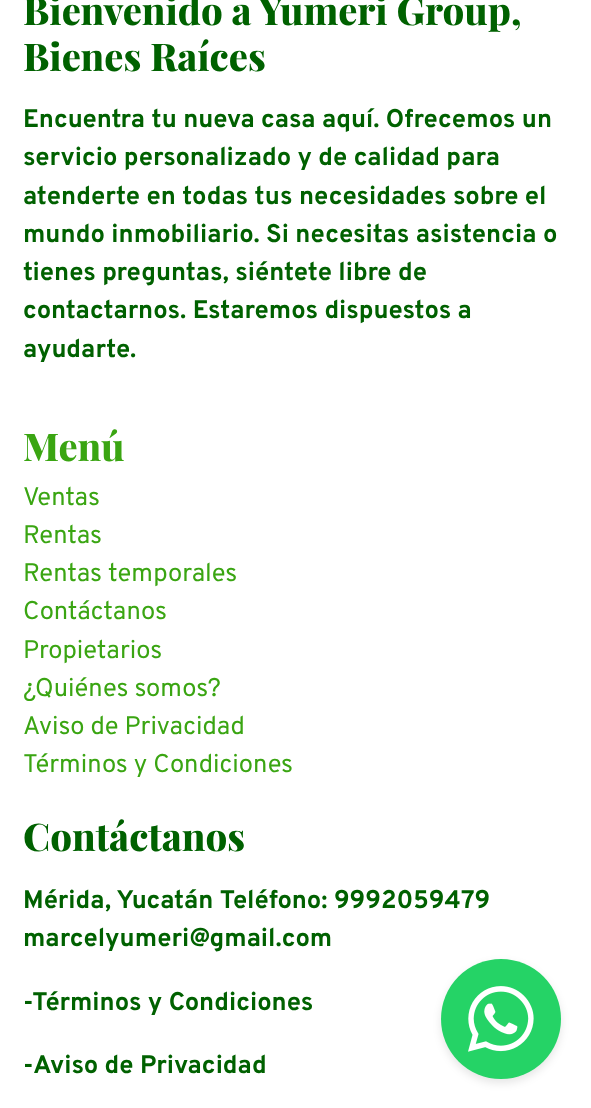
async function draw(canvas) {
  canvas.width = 591
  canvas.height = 1108
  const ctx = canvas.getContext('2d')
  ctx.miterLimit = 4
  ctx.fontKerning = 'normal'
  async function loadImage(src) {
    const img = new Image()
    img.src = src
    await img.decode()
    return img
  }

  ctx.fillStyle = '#fff'
  ctx.fillRect(0, 0, 591, 1108)
  ctx.font = '800 38.25px Playfair Display'
  ctx.fillStyle = '#006100'
  ctx.fillText('Bienvenido a Yumeri Group,', 23, 25)
  ctx.fillText('Bienes Raíces', 23, 71)
  ctx.font = 'bold 25.5px Overpass'
  ctx.fillText('Encuentra tu nueva casa aquí. Ofrecemos un', 23, 127)
  ctx.fillText('servicio personalizado y de calidad para', 23, 165)
  ctx.fillText('atenderte en todas tus necesidades sobre el', 23, 204)
  ctx.fillText('mundo inmobiliario. Si necesitas asistencia o', 23, 242)
  ctx.fillText('tienes preguntas, siéntete libre de', 23, 280)
  ctx.fillText('contactarnos. Estaremos dispuestos a', 23, 318)
  ctx.fillText('ayudarte.', 23, 357)
  ctx.font = '800 38.25px Playfair Display'
  ctx.fillStyle = '#3aa512'
  ctx.fillText('Menú', 23, 461)
  ctx.font = '25.5px Overpass'
  ctx.fillText('Ventas', 23, 505)
  ctx.fillText('Rentas', 23, 543)
  ctx.fillText('Rentas temporales', 23, 581)
  ctx.fillText('Contáctanos', 23, 619)
  ctx.fillText('Propietarios', 23, 658)
  ctx.fillText('¿Quiénes somos?', 23, 696)
  ctx.fillText('Aviso de Privacidad', 23, 734)
  ctx.fillText('Términos y Condiciones', 23, 772)
  ctx.font = '800 38.25px Playfair Display'
  ctx.fillStyle = '#006100'
  ctx.fillText('Contáctanos', 23, 851)
  ctx.font = 'bold 25.5px Overpass'
  ctx.fillText('Mérida, Yucatán Teléfono: 9992059479', 23, 908)
  ctx.fillText('marcelyumeri@gmail.com', 23, 946)
  ctx.fillText('-Términos y Condiciones', 23, 1010)
  ctx.fillText('-Aviso de Privacidad', 23, 1073)
  ctx.fillStyle = '#0000001a'
  ctx.filter = 'blur(4.5px)'
  ctx.beginPath()
  ctx.roundRect(441, 963, 120, 120, 60)
  ctx.fill()
  ctx.filter = 'none'
  ctx.fillStyle = '#25d366'
  ctx.beginPath()
  ctx.arc(501, 1019, 60, 0, 2 * Math.PI)
  ctx.fill()
  ctx.drawImage(await loadImage('image0.png'), 468, 986, 66, 66)
}

draw(document.querySelector('canvas'))
